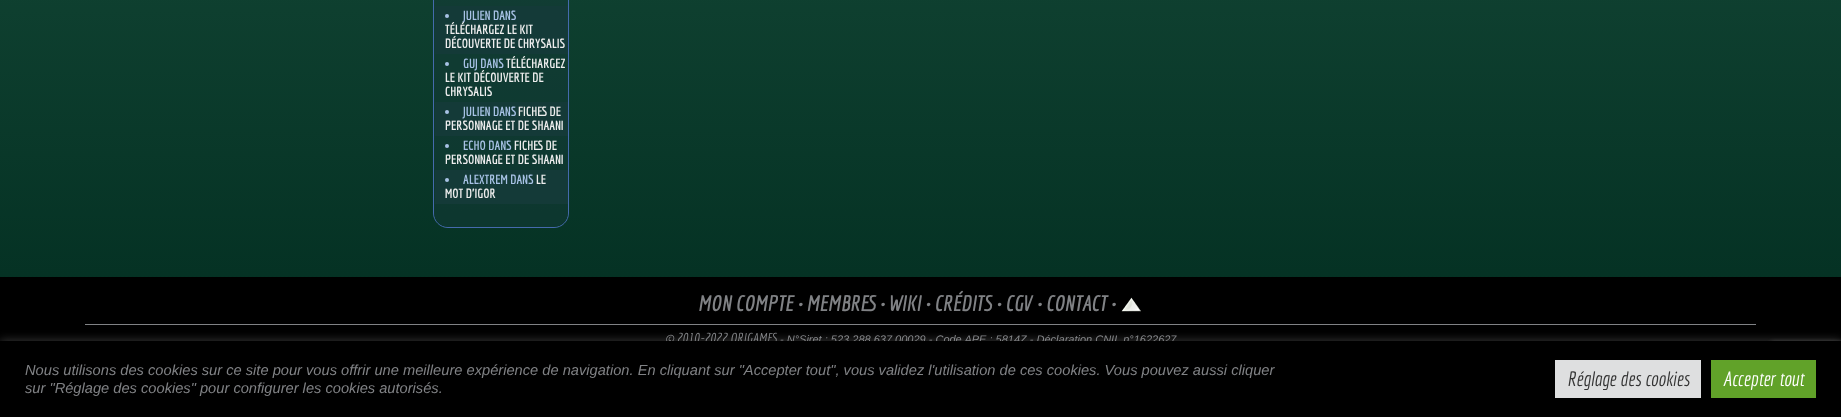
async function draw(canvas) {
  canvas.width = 1841
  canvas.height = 417
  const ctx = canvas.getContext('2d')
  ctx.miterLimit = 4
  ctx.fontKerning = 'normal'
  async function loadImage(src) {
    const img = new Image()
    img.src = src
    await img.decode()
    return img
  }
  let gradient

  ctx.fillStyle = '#fff'
  ctx.fillRect(0, 0, 1841, 417)
  gradient = ctx.createLinearGradient(920, -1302, 921, 417)
  gradient.addColorStop(0, '#3b7f66')
  gradient.addColorStop(1, '#002b1e')
  ctx.fillStyle = gradient
  ctx.fillRect(0, 0, 1841, 277)
  ctx.beginPath()
  ctx.moveTo(433.5, -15.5)
  ctx.lineTo(568.5, -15.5)
  ctx.lineTo(568.5, 213)
  ctx.bezierCurveTo(568.5, 221, 562, 227.5, 554, 227.5)
  ctx.lineTo(448, 227.5)
  ctx.bezierCurveTo(440, 227.5, 433.5, 221, 433.5, 213)
  ctx.closePath()
  ctx.strokeStyle = '#456aad'
  ctx.stroke()
  ctx.fillStyle = '#143a3880'
  ctx.beginPath()
  ctx.moveTo(434, -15)
  ctx.lineTo(568, -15)
  ctx.lineTo(568, 212)
  ctx.bezierCurveTo(568, 220.5, 561.5, 227, 553, 227)
  ctx.lineTo(449, 227)
  ctx.bezierCurveTo(440.5, 227, 434, 220.5, 434, 212)
  ctx.closePath()
  ctx.fill()
  ctx.fillStyle = '#143a38'
  ctx.fillRect(435, 6, 133, 48)
  ctx.fillStyle = '#a8c2e5'
  ctx.beginPath()
  ctx.arc(447, 16, 2, 0, 2 * Math.PI)
  ctx.fill()
  ctx.font = 'bold 13px Economica'
  ctx.fillText('JULIEN DANS', 463, 20)
  ctx.fillStyle = '#eee'
  ctx.fillText('TÉLÉCHARGEZ LE KIT', 445, 34)
  ctx.fillText('DÉCOUVERTE DE CHRYSALIS', 445, 48)
  ctx.fillStyle = '#a8c2e5'
  ctx.beginPath()
  ctx.arc(447, 64, 2, 0, 2 * Math.PI)
  ctx.fill()
  ctx.fillText('GUJ DANS', 463, 68)
  ctx.fillStyle = '#eee'
  ctx.fillText('TÉLÉCHARGEZ', 506, 68)
  ctx.fillText('LE KIT DÉCOUVERTE DE', 445, 82)
  ctx.fillText('CHRYSALIS', 445, 96)
  ctx.fillStyle = '#143a38'
  ctx.fillRect(435, 102, 133, 34)
  ctx.fillStyle = '#a8c2e5'
  ctx.beginPath()
  ctx.arc(447, 112, 2, 0, 2 * Math.PI)
  ctx.fill()
  ctx.fillText('JULIEN DANS', 463, 116)
  ctx.fillStyle = '#eee'
  ctx.fillText('FICHES DE', 518, 116)
  ctx.fillText('PERSONNAGE ET DE SHAANI', 445, 130)
  ctx.fillStyle = '#a8c2e5'
  ctx.beginPath()
  ctx.arc(447, 146, 2, 0, 2 * Math.PI)
  ctx.fill()
  ctx.fillText('ECHO DANS', 463, 150)
  ctx.fillStyle = '#eee'
  ctx.fillText('FICHES DE', 514, 150)
  ctx.fillText('PERSONNAGE ET DE SHAANI', 445, 164)
  ctx.fillStyle = '#143a38'
  ctx.fillRect(435, 170, 133, 34)
  ctx.fillStyle = '#a8c2e5'
  ctx.beginPath()
  ctx.arc(447, 180, 2, 0, 2 * Math.PI)
  ctx.fill()
  ctx.fillText('ALEXTREM DANS', 463, 184)
  ctx.fillStyle = '#eee'
  ctx.fillText('LE', 536, 184)
  ctx.fillText('MOT D’IGOR', 445, 198)
  ctx.fillStyle = '#000'
  ctx.fillRect(0, 277, 1841, 64)
  ctx.fillStyle = '#808285'
  ctx.fillRect(85, 324, 1671, 1)
  ctx.font = 'italic bold 22px Economica'
  ctx.fillText('MON COMPTE • MEMBRES • WIKI • CRÉDITS • CGV • CONTACT •', 698, 311)
  ctx.drawImage(await loadImage('image0.png'), 1121, 297, 20, 15)
  ctx.font = 'italic 14px Economica'
  ctx.fillText('© 2010-2022 ORIGAMES', 665, 343)
  ctx.font = 'italic 11px Liberation Sans'
  ctx.fillText('- N°Siret : 523 288 637 00029 - Code APE : 5814Z - Déclaration CNIL n°1622627', 780, 343)
  ctx.fillStyle = '#acabab4d'
  ctx.filter = 'blur(5px)'
  ctx.beginPath()
  ctx.rect(0, 340, 1841, 76)
  ctx.fill()
  ctx.filter = 'none'
  ctx.fillStyle = '#808080'
  ctx.filter = 'blur(2.5px)'
  ctx.beginPath()
  ctx.roundRect(1771, 343, 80, 60, 2)
  ctx.fill()
  ctx.filter = 'none'
  ctx.fillStyle = '#000'
  ctx.fillRect(0, 341, 1841, 76)
  ctx.font = 'italic 14.67px Liberation Sans'
  ctx.fillStyle = '#808285'
  ctx.fillText('Nous utilisons des cookies sur ce site pour vous offrir une meilleure expérience de navigation. En cliquant sur "Accepter tout", vous validez l\'utilisation de ces cookies. Vous pouvez aussi cliquer', 25, 375)
  ctx.fillText('sur "Réglage des cookies" pour configurer les cookies autorisés.', 25, 393)
  ctx.fillStyle = '#dedfe0'
  ctx.fillRect(1555, 360, 146, 38)
  ctx.font = 'italic 20px Economica'
  ctx.fillStyle = '#333'
  ctx.fillText('Réglage des cookies', 1567, 386)
  ctx.fillStyle = '#61a229'
  ctx.fillRect(1711, 360, 105, 38)
  ctx.fillStyle = '#fff'
  ctx.fillText('Accepter tout', 1723, 386)
}

draw(document.querySelector('canvas'))
